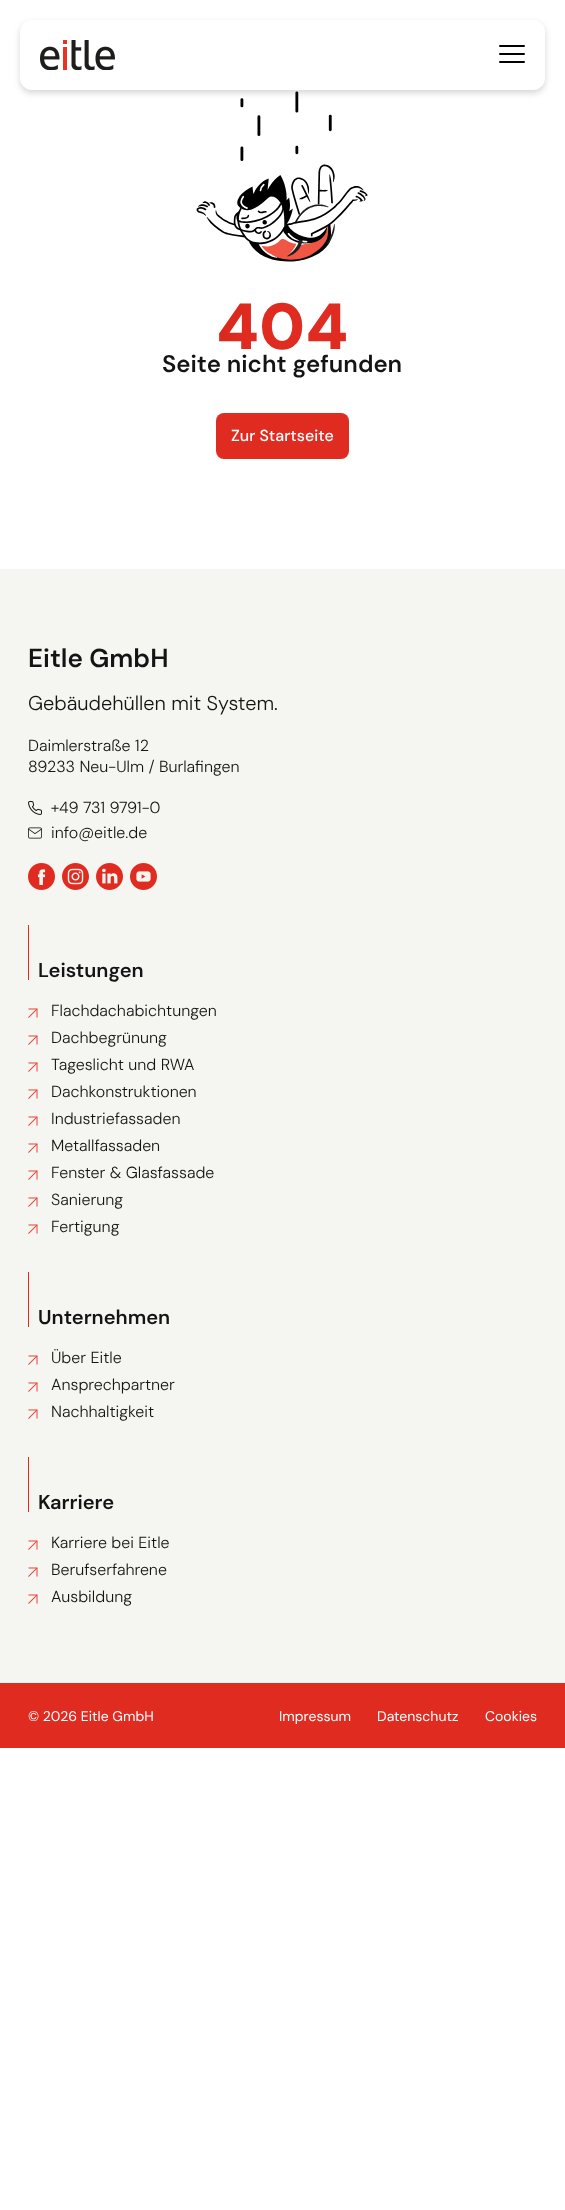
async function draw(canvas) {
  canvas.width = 565
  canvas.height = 2210
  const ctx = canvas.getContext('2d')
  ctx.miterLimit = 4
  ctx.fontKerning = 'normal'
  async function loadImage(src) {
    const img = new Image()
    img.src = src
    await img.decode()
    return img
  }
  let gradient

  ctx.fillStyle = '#fff'
  ctx.fillRect(0, 0, 565, 2210)
  ctx.drawImage(await loadImage('image1.png'), 196, 91, 172, 171)
  ctx.fillStyle = '#00000029'
  ctx.filter = 'blur(3px)'
  ctx.beginPath()
  ctx.roundRect(20, 23, 525, 70, 12)
  ctx.fill()
  ctx.filter = 'none'
  ctx.fillStyle = '#fff'
  ctx.beginPath()
  ctx.roundRect(20, 20, 525, 70, 12)
  ctx.fill()
  ctx.drawImage(await loadImage('image0.png'), 40, 40, 75, 30)
  ctx.fillStyle = '#000'
  ctx.beginPath()
  ctx.roundRect(499, 53, 26, 2, 1)
  ctx.fill()
  ctx.beginPath()
  ctx.roundRect(499, 45, 26, 2, 1)
  ctx.fill()
  ctx.beginPath()
  ctx.roundRect(499, 61, 26, 2, 1)
  ctx.fill()
  ctx.font = '900 65px DM Sans'
  gradient = ctx.createLinearGradient(163, 284, 402, 371)
  gradient.addColorStop(0, '#c9210f')
  gradient.addColorStop(0.37, '#e02b20')
  ctx.fillStyle = gradient
  ctx.fillText('404', 216, 349)
  ctx.font = '600 24px DM Sans'
  ctx.fillStyle = '#141414'
  ctx.fillText('Seite nicht gefunden', 162, 372)
  ctx.fillStyle = '#e02b20'
  ctx.beginPath()
  ctx.roundRect(216, 413, 133, 46, 8)
  ctx.fill()
  ctx.font = '500 16px DM Sans'
  ctx.fillStyle = '#fff'
  ctx.fillText('Zur Startseite', 231, 441)
  ctx.fillStyle = '#f5f5f1'
  ctx.fillRect(0, 569, 565, 1114)
  ctx.font = '600 26px DM Sans'
  ctx.fillStyle = '#141414'
  ctx.fillText('Eitle GmbH', 28, 667)
  ctx.font = '300 20px DM Sans'
  ctx.fillText('Gebäudehüllen mit System.', 28, 710)
  ctx.font = '300 16px DM Sans'
  ctx.fillText('Daimlerstraße 12', 28, 751)
  ctx.fillText('89233 Neu-Ulm / Burlafingen', 28, 772)
  ctx.drawImage(await loadImage('image2.png'), 28, 801, 14, 14)
  ctx.fillText('+49 731 9791-0', 51, 813)
  ctx.drawImage(await loadImage('image3.png'), 28, 827, 14, 12)
  ctx.fillText('info@eitle.de', 51, 838)
  ctx.drawImage(await loadImage('image4.png'), 28, 863, 27, 27)
  ctx.drawImage(await loadImage('image5.png'), 62, 863, 27, 27)
  ctx.drawImage(await loadImage('image6.png'), 96, 863, 27, 27)
  ctx.drawImage(await loadImage('image7.png'), 130, 863, 27, 27)
  ctx.fillStyle = '#e02b20'
  ctx.fillRect(28, 925, 1, 55)
  ctx.font = '600 20px DM Sans'
  ctx.fillStyle = '#141414'
  ctx.fillText('Leistungen', 38, 977)
  ctx.drawImage(await loadImage('image8.png'), 28, 1008, 10, 10)
  ctx.font = '300 16px DM Sans'
  ctx.fillText('Flachdachabichtungen', 51, 1016)
  ctx.drawImage(await loadImage('image8.png'), 28, 1035, 10, 10)
  ctx.fillText('Dachbegrünung', 51, 1043)
  ctx.drawImage(await loadImage('image8.png'), 28, 1062, 10, 10)
  ctx.fillText('Tageslicht und RWA', 51, 1070)
  ctx.drawImage(await loadImage('image8.png'), 28, 1089, 10, 10)
  ctx.fillText('Dachkonstruktionen', 51, 1097)
  ctx.drawImage(await loadImage('image8.png'), 28, 1116, 10, 10)
  ctx.fillText('Industriefassaden', 51, 1124)
  ctx.drawImage(await loadImage('image8.png'), 28, 1143, 10, 10)
  ctx.fillText('Metallfassaden', 51, 1151)
  ctx.drawImage(await loadImage('image8.png'), 28, 1170, 10, 10)
  ctx.fillText('Fenster & Glasfassade', 51, 1178)
  ctx.drawImage(await loadImage('image8.png'), 28, 1197, 10, 10)
  ctx.fillText('Sanierung', 51, 1205)
  ctx.drawImage(await loadImage('image8.png'), 28, 1224, 10, 10)
  ctx.fillText('Fertigung', 51, 1232)
  ctx.fillStyle = '#e02b20'
  ctx.fillRect(28, 1272, 1, 55)
  ctx.font = '600 20px DM Sans'
  ctx.fillStyle = '#141414'
  ctx.fillText('Unternehmen', 38, 1324)
  ctx.drawImage(await loadImage('image8.png'), 28, 1355, 10, 10)
  ctx.font = '300 16px DM Sans'
  ctx.fillText('Über Eitle', 51, 1363)
  ctx.drawImage(await loadImage('image8.png'), 28, 1382, 10, 10)
  ctx.fillText('Ansprechpartner', 51, 1390)
  ctx.drawImage(await loadImage('image8.png'), 28, 1409, 10, 10)
  ctx.fillText('Nachhaltigkeit', 51, 1417)
  ctx.fillStyle = '#e02b20'
  ctx.fillRect(28, 1457, 1, 55)
  ctx.font = '600 20px DM Sans'
  ctx.fillStyle = '#141414'
  ctx.fillText('Karriere', 38, 1509)
  ctx.drawImage(await loadImage('image8.png'), 28, 1540, 10, 10)
  ctx.font = '300 16px DM Sans'
  ctx.fillText('Karriere bei Eitle', 51, 1548)
  ctx.drawImage(await loadImage('image8.png'), 28, 1567, 10, 10)
  ctx.fillText('Berufserfahrene', 51, 1575)
  ctx.drawImage(await loadImage('image8.png'), 28, 1594, 10, 10)
  ctx.fillText('Ausbildung', 51, 1602)
  ctx.fillStyle = '#e02b20'
  ctx.fillRect(0, 1683, 565, 65)
  ctx.font = '14px DM Sans'
  ctx.fillStyle = '#fff'
  ctx.fillText('© 2026 Eitle GmbH', 28, 1721)
  ctx.fillText('Impressum', 279, 1721)
  ctx.fillText('Datenschutz', 377, 1721)
  ctx.fillText('Cookies', 485, 1721)
}

draw(document.querySelector('canvas'))
